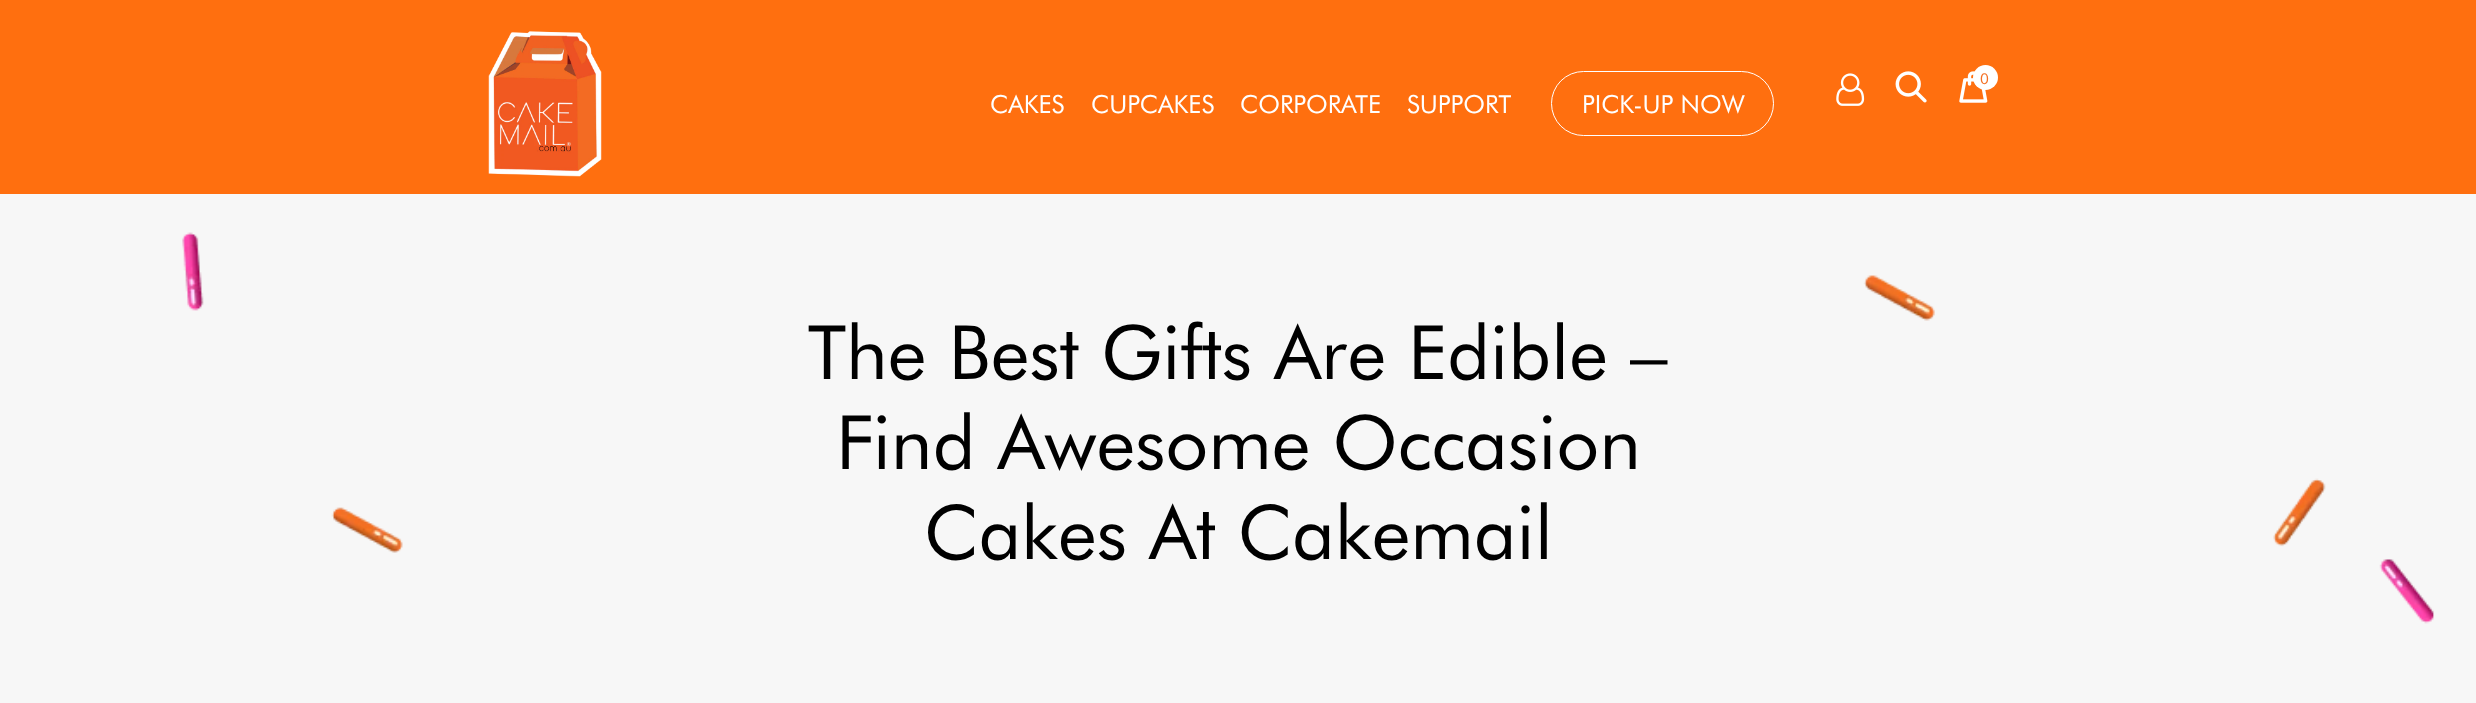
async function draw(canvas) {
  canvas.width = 2476
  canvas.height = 703
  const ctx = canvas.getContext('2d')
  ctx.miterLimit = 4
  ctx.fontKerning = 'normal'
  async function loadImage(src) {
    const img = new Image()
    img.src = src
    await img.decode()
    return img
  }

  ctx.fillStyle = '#f7f7f7'
  ctx.fillRect(0, 0, 2476, 703)
  ctx.fillStyle = '#ff6f0f'
  ctx.fillRect(0, 0, 2476, 194)
  ctx.drawImage(await loadImage('image0.png'), 488, 31, 114, 146)
  ctx.drawImage(await loadImage('image1.png'), 1836, 73, 29, 33)
  ctx.drawImage(await loadImage('image2.png'), 1895, 71, 32, 32)
  ctx.drawImage(await loadImage('image3.png'), 1959, 71, 29, 32)
  ctx.fillStyle = '#fff'
  ctx.beginPath()
  ctx.arc(1985.5, 77.5, 12.5, 0, 2 * Math.PI)
  ctx.fill()
  ctx.font = '15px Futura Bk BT'
  ctx.fillStyle = '#f46f23'
  ctx.fillText('0', 1980, 84)
  ctx.font = '25px Futura Bk BT'
  ctx.fillStyle = '#fff'
  ctx.fillText('CAKES', 990, 113)
  ctx.fillText('CUPCAKES', 1091, 113)
  ctx.fillText('CORPORATE', 1240, 113)
  ctx.fillText('SUPPORT', 1407, 113)
  ctx.beginPath()
  ctx.roundRect(1551.5, 71.5, 222, 64, 32)
  ctx.strokeStyle = '#fff'
  ctx.stroke()
  ctx.fillText('PICK-UP NOW', 1582, 113)
  ctx.drawImage(await loadImage('image4.png'), 182, 232, 2252, 392)
  ctx.font = '75px Futura Bk BT'
  ctx.fillStyle = '#000'
  ctx.fillText('The Best Gifts Are Edible –', 808, 379)
  ctx.fillText('Find Awesome Occasion', 836, 469)
  ctx.fillText('Cakes At Cakemail', 924, 559)
}

draw(document.querySelector('canvas'))
